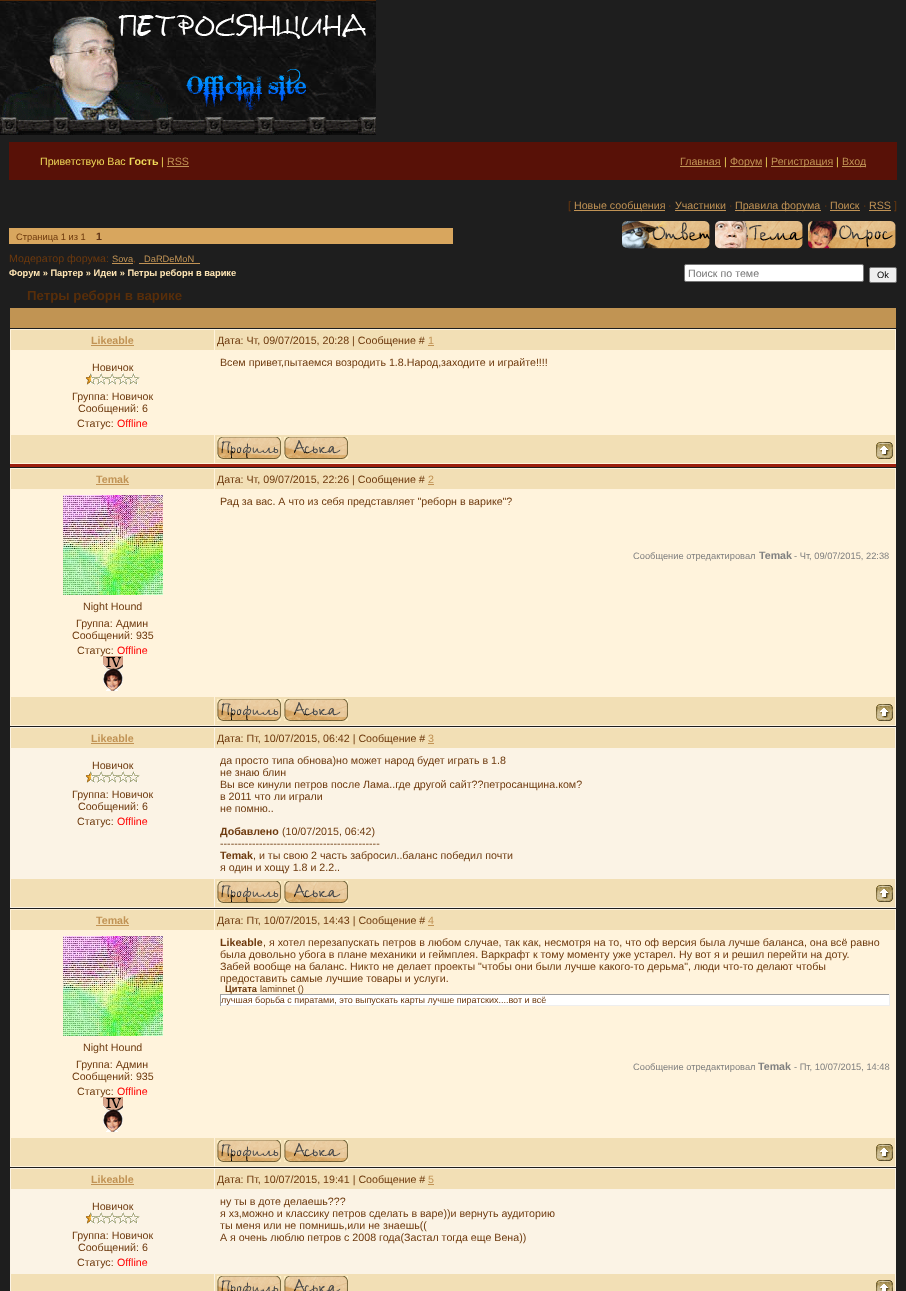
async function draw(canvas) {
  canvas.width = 906
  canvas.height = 1291
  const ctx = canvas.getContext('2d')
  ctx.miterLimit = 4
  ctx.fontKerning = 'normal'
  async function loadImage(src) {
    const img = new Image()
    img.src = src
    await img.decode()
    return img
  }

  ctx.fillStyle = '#1e1e1e'
  ctx.fillRect(0, 0, 906, 1291)
  ctx.drawImage(await loadImage('image0.png'), 0, 0, 376, 135)
  ctx.fillStyle = '#581107'
  ctx.fillRect(9, 142, 888, 38)
  ctx.font = '10.67px Liberation Sans'
  ctx.fillStyle = '#efd959'
  ctx.fillText('Приветствую Вас', 40, 165)
  ctx.font = 'bold 10.67px Liberation Sans'
  ctx.fillText('Гость', 129, 165)
  ctx.font = '10.67px Liberation Sans'
  ctx.fillText('|', 161, 165)
  ctx.fillStyle = '#c19355'
  ctx.fillText('RSS', 167, 165)
  ctx.fillRect(167, 166, 22, 1)
  ctx.fillText('Главная', 680, 165)
  ctx.fillRect(680, 166, 41, 1)
  ctx.fillStyle = '#efd959'
  ctx.fillText('|', 724, 165)
  ctx.fillStyle = '#c19355'
  ctx.fillRect(730, 166, 32, 1)
  ctx.fillText('Форум', 730, 165)
  ctx.fillStyle = '#efd959'
  ctx.fillText('|', 765, 165)
  ctx.fillStyle = '#c19355'
  ctx.fillRect(771, 166, 62, 1)
  ctx.fillText('Регистрация', 771, 165)
  ctx.fillStyle = '#efd959'
  ctx.fillText('|', 836, 165)
  ctx.fillStyle = '#c19355'
  ctx.fillRect(842, 166, 24, 1)
  ctx.fillText('Вход', 842, 165)
  ctx.fillStyle = '#6d390d'
  ctx.fillText('[', 568, 209)
  ctx.fillStyle = '#c19355'
  ctx.fillRect(574, 210, 91, 1)
  ctx.fillText('Новые сообщения', 574, 209)
  ctx.fillStyle = '#6d390d'
  ctx.fillText('·', 668, 209)
  ctx.fillStyle = '#c19355'
  ctx.fillText('Участники', 675, 209)
  ctx.fillRect(675, 210, 51, 1)
  ctx.fillStyle = '#6d390d'
  ctx.fillText('·', 729, 209)
  ctx.fillStyle = '#c19355'
  ctx.fillRect(735, 210, 86, 1)
  ctx.fillText('Правила форума', 735, 209)
  ctx.fillStyle = '#6d390d'
  ctx.fillText('·', 824, 209)
  ctx.fillStyle = '#c19355'
  ctx.fillText('Поиск', 830, 209)
  ctx.fillRect(830, 210, 30, 1)
  ctx.fillStyle = '#6d390d'
  ctx.fillText('·', 863, 209)
  ctx.fillStyle = '#c19355'
  ctx.fillText('RSS', 869, 209)
  ctx.fillRect(869, 210, 22, 1)
  ctx.fillStyle = '#6d390d'
  ctx.fillText(']', 894, 209)
  ctx.fillStyle = '#d8a65e'
  ctx.fillRect(9, 228, 444, 16)
  ctx.font = '9.3px Liberation Sans'
  ctx.fillStyle = '#6d390d'
  ctx.fillText('Страница 1 из 1', 16, 240)
  ctx.font = 'bold 10.67px Liberation Sans'
  ctx.fillStyle = '#613618'
  ctx.fillText('1', 96, 240)
  ctx.drawImage(await loadImage('image1.png'), 622, 221, 88, 28)
  ctx.drawImage(await loadImage('image2.png'), 715, 221, 88, 28)
  ctx.drawImage(await loadImage('image3.png'), 808, 221, 88, 28)
  ctx.font = '10.67px Liberation Sans'
  ctx.fillStyle = '#6d390d'
  ctx.fillText('Модератор форума:', 9, 262)
  ctx.font = '9.3px Liberation Sans'
  ctx.fillStyle = '#c19355'
  ctx.fillText('Sova', 112, 262)
  ctx.font = '10.67px Liberation Sans'
  ctx.fillStyle = '#6d390d'
  ctx.fillText(',', 133, 262)
  ctx.fillStyle = '#c19355'
  ctx.fillRect(112, 263, 21, 1)
  ctx.fillRect(139, 263, 61, 1)
  ctx.font = '9.3px Liberation Sans'
  ctx.fillText('DaRDeMoN', 144, 262)
  ctx.font = 'bold 9.3px Liberation Sans'
  ctx.fillStyle = '#ffe6b5'
  ctx.fillText('Форум » Партер » Идеи » Петры реборн в варике', 9, 276)
  ctx.fillStyle = '#fff'
  ctx.beginPath()
  ctx.roundRect(684.5, 264.5, 179, 17, 1.5)
  ctx.fill()
  ctx.strokeStyle = '#767676'
  ctx.stroke()
  ctx.font = '10.67px Liberation Sans'
  ctx.fillStyle = '#757575'
  ctx.fillText('Поиск по теме', 688, 277)
  ctx.fillStyle = '#efefef'
  ctx.beginPath()
  ctx.roundRect(869.5, 267.5, 27, 15, 1.5)
  ctx.fill()
  ctx.stroke()
  ctx.font = '9.3px Liberation Sans'
  ctx.fillStyle = '#000'
  ctx.fillText('Ok', 877, 278)
  ctx.font = 'bold 13.25px Liberation Sans'
  ctx.fillStyle = '#582e0a'
  ctx.fillText('Петры реборн в варике', 27, 300)
  ctx.fillStyle = '#c19453'
  ctx.fillRect(10, 308, 886, 20)
  ctx.fillStyle = '#fff3dc'
  ctx.fillRect(10, 329, 886, 135)
  ctx.fillStyle = '#9d1e0d'
  ctx.fillRect(10, 464, 886, 3)
  ctx.fillStyle = '#f2dfb5'
  ctx.fillRect(11, 330, 203, 20)
  ctx.font = 'bold 10.67px Liberation Sans'
  ctx.fillStyle = '#c19355'
  ctx.fillText('Likeable', 91, 344)
  ctx.fillRect(91, 345, 43, 1)
  ctx.fillStyle = '#f2dfb5'
  ctx.fillRect(215, 330, 680, 20)
  ctx.font = '10.67px Liberation Sans'
  ctx.fillStyle = '#6d390d'
  ctx.fillText('Дата: Чт, 09/07/2015, 20:28 | Сообщение #', 217, 344)
  ctx.fillStyle = '#c19355'
  ctx.fillText('1', 428, 344)
  ctx.fillRect(428, 345, 6, 1)
  ctx.fillStyle = '#6d390d'
  ctx.fillText('Новичок', 92, 371)
  ctx.drawImage(await loadImage('image4.png'), 85, 373, 55, 12)
  ctx.fillText('Группа: Новичок', 72, 400)
  ctx.fillText('Сообщений: 6', 78, 412)
  ctx.fillText('Статус:', 77, 427)
  ctx.fillStyle = '#f00'
  ctx.fillText('Offline', 117, 427)
  ctx.fillStyle = '#6d390d'
  ctx.fillText('Всем привет,пытаемся возродить 1.8.Народ,заходите и играйте!!!!', 220, 366)
  ctx.fillStyle = '#f2dfb5'
  ctx.fillRect(11, 435, 203, 28)
  ctx.fillRect(215, 435, 680, 28)
  ctx.drawImage(await loadImage('image5.png'), 217, 437, 64, 22)
  ctx.drawImage(await loadImage('image6.png'), 284, 437, 64, 22)
  ctx.drawImage(await loadImage('image7.png'), 876, 442, 17, 17)
  ctx.fillStyle = '#fff3dc'
  ctx.fillRect(10, 468, 886, 258)
  ctx.fillStyle = '#f2dfb5'
  ctx.fillRect(11, 469, 203, 20)
  ctx.font = 'bold 10.67px Liberation Sans'
  ctx.fillStyle = '#c19355'
  ctx.fillText('Temak', 96, 483)
  ctx.fillRect(96, 484, 33, 1)
  ctx.fillStyle = '#f2dfb5'
  ctx.fillRect(215, 469, 680, 20)
  ctx.font = '10.67px Liberation Sans'
  ctx.fillStyle = '#6d390d'
  ctx.fillText('Дата: Чт, 09/07/2015, 22:26 | Сообщение #', 217, 483)
  ctx.fillStyle = '#c19355'
  ctx.fillText('2', 428, 483)
  ctx.fillRect(428, 484, 6, 1)
  ctx.fillStyle = '#6d390d'
  ctx.fillText('Рад за вас. А что из себя представляет "реборн в варике"?', 220, 505)
  ctx.font = '9.3px Liberation Sans'
  ctx.fillStyle = '#808080'
  ctx.fillText('Сообщение отредактировал', 633, 559)
  ctx.font = 'bold 10.67px Liberation Sans'
  ctx.fillText('Temak', 759, 559)
  ctx.font = '9.3px Liberation Sans'
  ctx.fillText('- Чт, 09/07/2015, 22:38', 794, 559)
  ctx.drawImage(await loadImage('image8.png'), 63, 495, 100, 100)
  ctx.font = '10.67px Liberation Sans'
  ctx.fillStyle = '#6d390d'
  ctx.fillText('Night Hound', 83, 610)
  ctx.fillText('Группа: Админ', 76, 627)
  ctx.fillText('Сообщений: 935', 72, 639)
  ctx.fillText('Статус:', 77, 654)
  ctx.fillStyle = '#f00'
  ctx.fillText('Offline', 117, 654)
  ctx.drawImage(await loadImage('image9.png'), 103, 656, 20, 35)
  ctx.fillStyle = '#f2dfb5'
  ctx.fillRect(11, 697, 203, 28)
  ctx.fillRect(215, 697, 680, 28)
  ctx.drawImage(await loadImage('image5.png'), 217, 699, 64, 22)
  ctx.drawImage(await loadImage('image6.png'), 284, 699, 64, 22)
  ctx.drawImage(await loadImage('image7.png'), 876, 704, 17, 17)
  ctx.fillStyle = '#fbf3e5'
  ctx.fillRect(10, 727, 886, 181)
  ctx.fillStyle = '#f2dfb5'
  ctx.fillRect(11, 728, 203, 20)
  ctx.font = 'bold 10.67px Liberation Sans'
  ctx.fillStyle = '#c19355'
  ctx.fillText('Likeable', 91, 742)
  ctx.fillRect(91, 743, 43, 1)
  ctx.fillStyle = '#f2dfb5'
  ctx.fillRect(215, 728, 680, 20)
  ctx.font = '10.67px Liberation Sans'
  ctx.fillStyle = '#6d390d'
  ctx.fillText('Дата: Пт, 10/07/2015, 06:42 | Сообщение #', 217, 742)
  ctx.fillStyle = '#c19355'
  ctx.fillText('3', 428, 742)
  ctx.fillRect(428, 743, 6, 1)
  ctx.fillStyle = '#6d390d'
  ctx.fillText('Новичок', 92, 769)
  ctx.drawImage(await loadImage('image10.png'), 85, 771, 55, 12)
  ctx.fillText('Группа: Новичок', 72, 798)
  ctx.fillText('Сообщений: 6', 78, 810)
  ctx.fillText('Статус:', 77, 825)
  ctx.fillStyle = '#f00'
  ctx.fillText('Offline', 117, 825)
  ctx.fillStyle = '#6d390d'
  ctx.fillText('да просто типа обнова)но может народ будет играть в 1.8', 220, 764)
  ctx.fillText('не знаю блин', 220, 776)
  ctx.fillText('Вы все кинули петров после Лама..где другой сайт??петросанщина.ком?', 220, 788)
  ctx.fillText('в 2011 что ли играли', 220, 800)
  ctx.fillText('не помню..', 220, 812)
  ctx.font = 'bold 10.67px Liberation Sans'
  ctx.fillText('Добавлено', 220, 835)
  ctx.font = '10.67px Liberation Sans'
  ctx.fillText('(10/07/2015, 06:42)', 282, 835)
  ctx.fillText('---------------------------------------------', 220, 847)
  ctx.font = 'bold 10.67px Liberation Sans'
  ctx.fillText('Temak', 220, 859)
  ctx.font = '10.67px Liberation Sans'
  ctx.fillText(', и ты свою 2 часть забросил..баланс победил почти', 253, 859)
  ctx.fillText('я один и хощу 1.8 и 2.2..', 220, 871)
  ctx.fillStyle = '#f2dfb5'
  ctx.fillRect(11, 879, 203, 28)
  ctx.fillRect(215, 879, 680, 28)
  ctx.drawImage(await loadImage('image5.png'), 217, 881, 64, 22)
  ctx.drawImage(await loadImage('image6.png'), 284, 881, 64, 22)
  ctx.drawImage(await loadImage('image7.png'), 876, 885, 17, 17)
  ctx.fillStyle = '#fff3dc'
  ctx.fillRect(10, 909, 886, 258)
  ctx.fillStyle = '#f2dfb5'
  ctx.fillRect(11, 910, 203, 20)
  ctx.font = 'bold 10.67px Liberation Sans'
  ctx.fillStyle = '#c19355'
  ctx.fillText('Temak', 96, 924)
  ctx.fillRect(96, 925, 33, 1)
  ctx.fillStyle = '#f2dfb5'
  ctx.fillRect(215, 910, 680, 20)
  ctx.font = '10.67px Liberation Sans'
  ctx.fillStyle = '#6d390d'
  ctx.fillText('Дата: Пт, 10/07/2015, 14:43 | Сообщение #', 217, 924)
  ctx.fillStyle = '#c19355'
  ctx.fillText('4', 428, 924)
  ctx.fillRect(428, 925, 6, 1)
  ctx.drawImage(await loadImage('image8.png'), 63, 936, 100, 100)
  ctx.fillStyle = '#6d390d'
  ctx.fillText('Night Hound', 83, 1051)
  ctx.fillText('Группа: Админ', 76, 1068)
  ctx.fillText('Сообщений: 935', 72, 1080)
  ctx.fillText('Статус:', 77, 1095)
  ctx.fillStyle = '#f00'
  ctx.fillText('Offline', 117, 1095)
  ctx.drawImage(await loadImage('image9.png'), 103, 1097, 20, 35)
  ctx.font = 'bold 10.67px Liberation Sans'
  ctx.fillStyle = '#6d390d'
  ctx.fillText('Likeable', 220, 946)
  ctx.font = '10.67px Liberation Sans'
  ctx.fillText(', я хотел перезапускать петров в любом случае, так как, несмотря на то, что оф версия была лучше баланса, она всё равно', 263, 946)
  ctx.fillText('была довольно убога в плане механики и геймплея. Варкрафт к тому моменту уже устарел. Ну вот я и решил перейти на доту.', 220, 958)
  ctx.fillText('Забей вообще на баланс. Никто не делает проекты "чтобы они были лучше какого-то дерьма", люди что-то делают чтобы', 220, 970)
  ctx.fillText('предоставить самые лучшие товары и услуги.', 220, 982)
  ctx.font = 'bold 9.3px Liberation Sans'
  ctx.fillText('Цитата', 225, 992)
  ctx.font = '9.3px Liberation Sans'
  ctx.fillText('laminnet ()', 260, 992)
  ctx.fillStyle = '#fff'
  ctx.fillRect(221, 995, 668, 10)
  ctx.fillStyle = '#9f9f9f'
  ctx.fillRect(220, 994, 670, 1)
  ctx.fillStyle = '#eee'
  ctx.fillRect(889, 994, 1, 12)
  ctx.fillRect(220, 1005, 670, 1)
  ctx.fillStyle = '#9f9f9f'
  ctx.fillRect(220, 994, 1, 12)
  ctx.font = '9px Liberation Sans'
  ctx.fillStyle = '#6d390d'
  ctx.fillText('лучшая борьба с пиратами, это выпускать карты лучше пиратских....вот и всё', 221, 1003)
  ctx.font = '9.3px Liberation Sans'
  ctx.fillStyle = '#808080'
  ctx.fillText('Сообщение отредактировал', 633, 1070)
  ctx.font = 'bold 10.67px Liberation Sans'
  ctx.fillText('Temak', 758, 1070)
  ctx.font = '9.3px Liberation Sans'
  ctx.fillText('- Пт, 10/07/2015, 14:48', 794, 1070)
  ctx.fillStyle = '#f2dfb5'
  ctx.fillRect(11, 1138, 203, 28)
  ctx.fillRect(215, 1138, 680, 28)
  ctx.drawImage(await loadImage('image5.png'), 217, 1140, 64, 22)
  ctx.drawImage(await loadImage('image6.png'), 284, 1140, 64, 22)
  ctx.drawImage(await loadImage('image7.png'), 876, 1144, 17, 17)
  ctx.fillStyle = '#fbf3e5'
  ctx.fillRect(10, 1168, 886, 123)
  ctx.fillStyle = '#f2dfb5'
  ctx.fillRect(11, 1169, 203, 20)
  ctx.font = 'bold 10.67px Liberation Sans'
  ctx.fillStyle = '#c19355'
  ctx.fillText('Likeable', 91, 1183)
  ctx.fillRect(91, 1184, 43, 1)
  ctx.fillStyle = '#f2dfb5'
  ctx.fillRect(215, 1169, 680, 20)
  ctx.font = '10.67px Liberation Sans'
  ctx.fillStyle = '#6d390d'
  ctx.fillText('Дата: Пт, 10/07/2015, 19:41 | Сообщение #', 217, 1183)
  ctx.fillStyle = '#c19355'
  ctx.fillText('5', 428, 1183)
  ctx.fillRect(428, 1184, 6, 1)
  ctx.fillStyle = '#6d390d'
  ctx.fillText('Новичок', 92, 1210)
  ctx.drawImage(await loadImage('image10.png'), 85, 1212, 55, 12)
  ctx.fillText('Группа: Новичок', 72, 1239)
  ctx.fillText('Сообщений: 6', 78, 1251)
  ctx.fillText('Статус:', 77, 1266)
  ctx.fillStyle = '#f00'
  ctx.fillText('Offline', 117, 1266)
  ctx.fillStyle = '#6d390d'
  ctx.fillText('ну ты в доте делаешь???', 220, 1205)
  ctx.fillText('я хз,можно и классику петров сделать в варе))и вернуть аудиторию', 220, 1217)
  ctx.fillText('ты меня или не помнишь,или не знаешь((', 220, 1229)
  ctx.fillText('А я очень люблю петров с 2008 года(Застал тогда еще Вена))', 220, 1241)
  ctx.fillStyle = '#f2dfb5'
  ctx.fillRect(11, 1274, 203, 17)
  ctx.fillRect(215, 1274, 680, 17)
  ctx.drawImage(await loadImage('image11.png'), 217, 1276, 64, 15)
  ctx.drawImage(await loadImage('image12.png'), 284, 1276, 64, 15)
  ctx.drawImage(await loadImage('image13.png'), 876, 1280, 17, 11)
}

draw(document.querySelector('canvas'))
